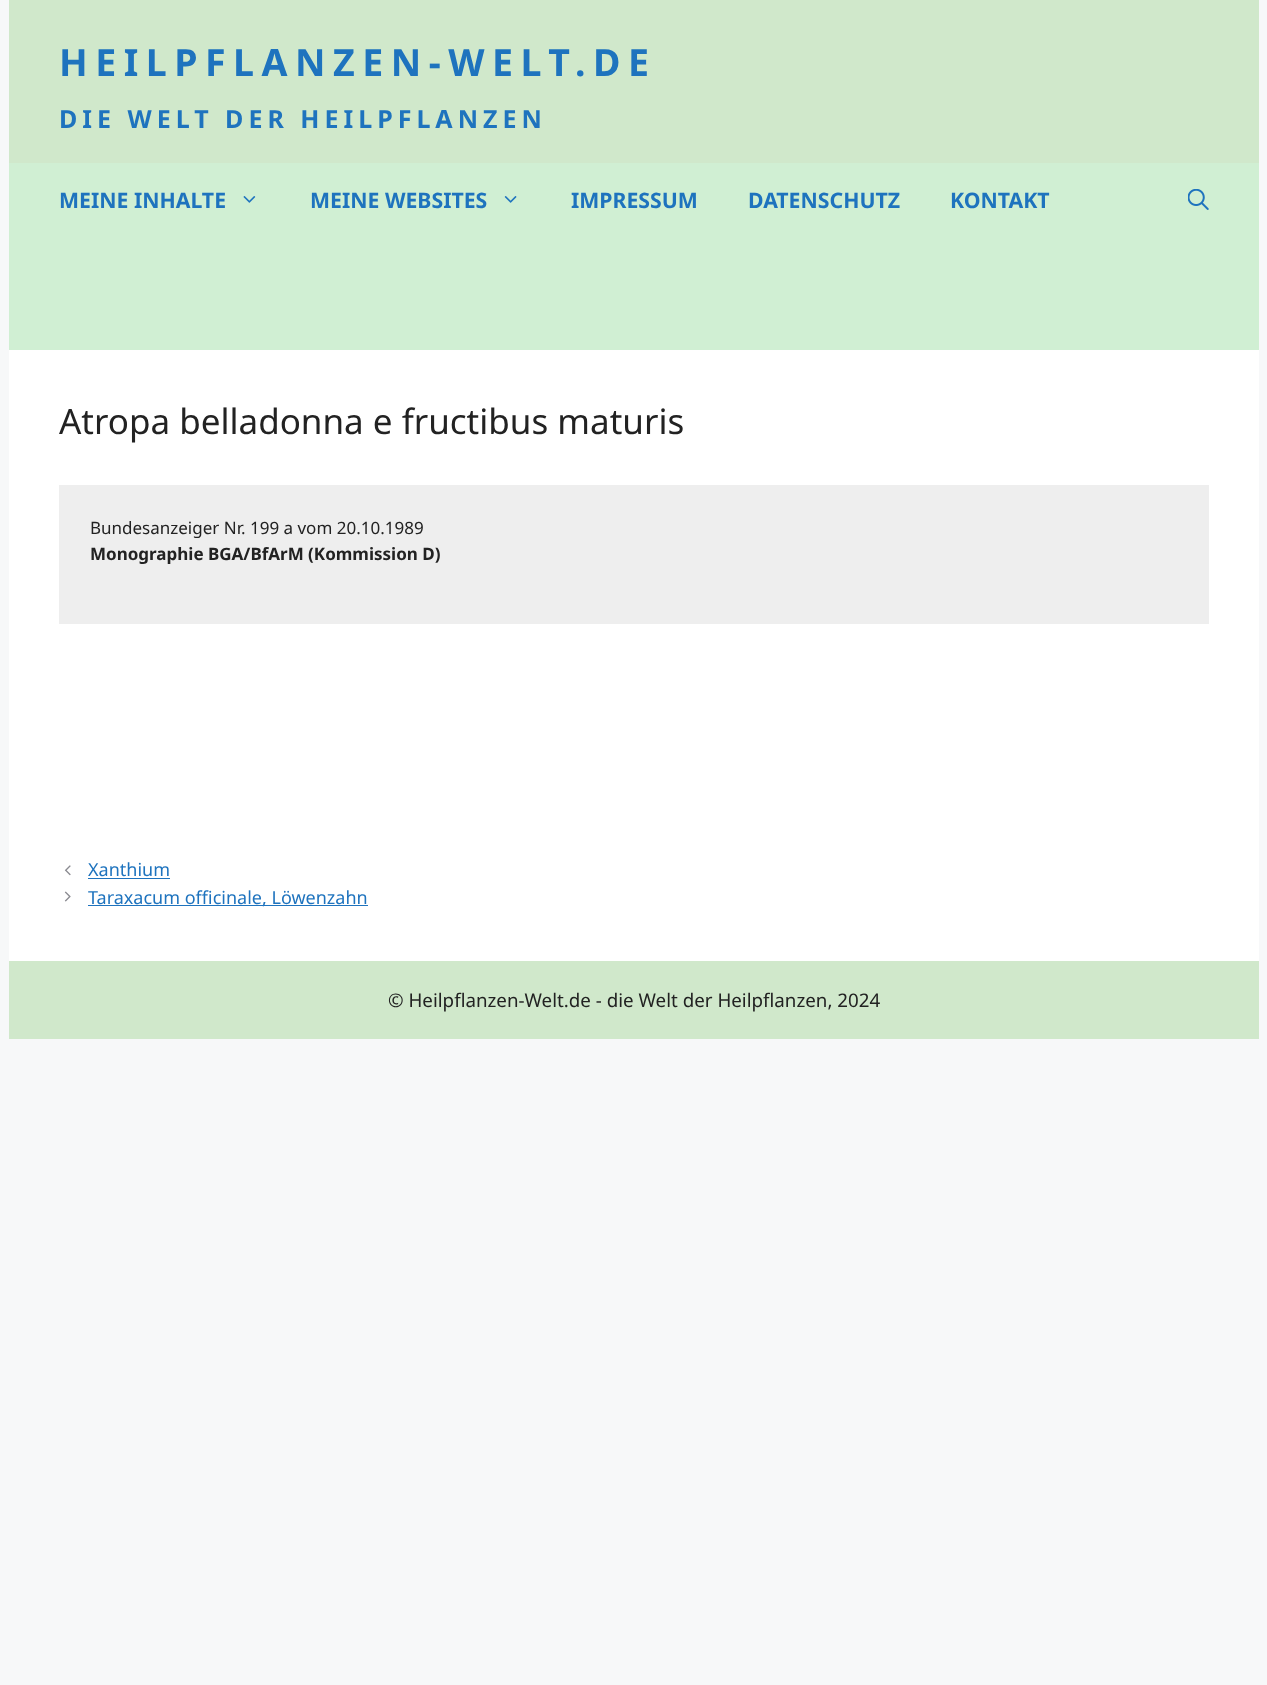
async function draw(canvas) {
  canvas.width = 1267
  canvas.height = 1685
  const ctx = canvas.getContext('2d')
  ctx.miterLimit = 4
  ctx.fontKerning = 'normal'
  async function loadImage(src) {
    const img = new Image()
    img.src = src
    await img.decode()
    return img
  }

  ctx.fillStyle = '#f7f8f9'
  ctx.fillRect(0, 0, 1267, 1685)
  ctx.fillStyle = '#d0e8cb'
  ctx.fillRect(9, 0, 1250, 163)
  ctx.letterSpacing = '7.5px'
  ctx.font = 'bold 37.5px Noto Sans'
  ctx.fillStyle = '#1e73be'
  ctx.fillText('HEILPFLANZEN-WELT.DE', 59, 76)
  ctx.letterSpacing = '5px'
  ctx.font = 'bold 25px Noto Sans'
  ctx.fillText('DIE WELT DER HEILPFLANZEN', 59, 128)
  ctx.fillStyle = '#d0efd3'
  ctx.fillRect(9, 163, 1250, 187)
  ctx.letterSpacing = '0px'
  ctx.font = 'bold 21.25px Noto Sans'
  ctx.fillStyle = '#1e73be'
  ctx.fillText('MEINE INHALTE', 59, 208)
  ctx.drawImage(await loadImage('image0.png'), 243, 196, 13, 7)
  ctx.fillText('MEINE WEBSITES', 310, 208)
  ctx.drawImage(await loadImage('image1.png'), 504, 196, 13, 7)
  ctx.fillText('IMPRESSUM', 571, 208)
  ctx.fillText('DATENSCHUTZ', 748, 208)
  ctx.fillText('KONTAKT', 950, 208)
  ctx.drawImage(await loadImage('image2.png'), 1188, 189, 21, 21)
  ctx.fillStyle = '#fff'
  ctx.fillRect(9, 350, 1250, 611)
  ctx.font = '35px Noto Sans'
  ctx.fillStyle = '#222'
  ctx.fillText('Atropa belladonna e fructibus maturis', 59, 434)
  ctx.fillStyle = '#eee'
  ctx.fillRect(59, 485, 1150, 139)
  ctx.font = '17px Noto Sans'
  ctx.fillStyle = '#222'
  ctx.fillText('Bundesanzeiger Nr. 199 a vom 20.10.1989', 90, 534)
  ctx.font = 'bold 17px Noto Sans'
  ctx.fillText('Monographie BGA/BfArM (Kommission D)', 90, 560)
  ctx.drawImage(await loadImage('image3.png'), 64, 865, 7, 11)
  ctx.font = '18px Noto Sans'
  ctx.fillStyle = '#1e73be'
  ctx.fillText('Xanthium', 88, 876)
  ctx.fillRect(88, 878, 82, 1)
  ctx.drawImage(await loadImage('image4.png'), 64, 891, 7, 11)
  ctx.fillRect(88, 905, 280, 1)
  ctx.fillText('Taraxacum officinale, Löwenzahn', 88, 904)
  ctx.fillStyle = '#d0e8cb'
  ctx.fillRect(9, 961, 1250, 78)
  ctx.font = '18.75px Noto Sans'
  ctx.fillStyle = '#222'
  ctx.fillText('© Heilpflanzen-Welt.de - die Welt der Heilpflanzen, 2024', 388, 1007)
}

draw(document.querySelector('canvas'))
